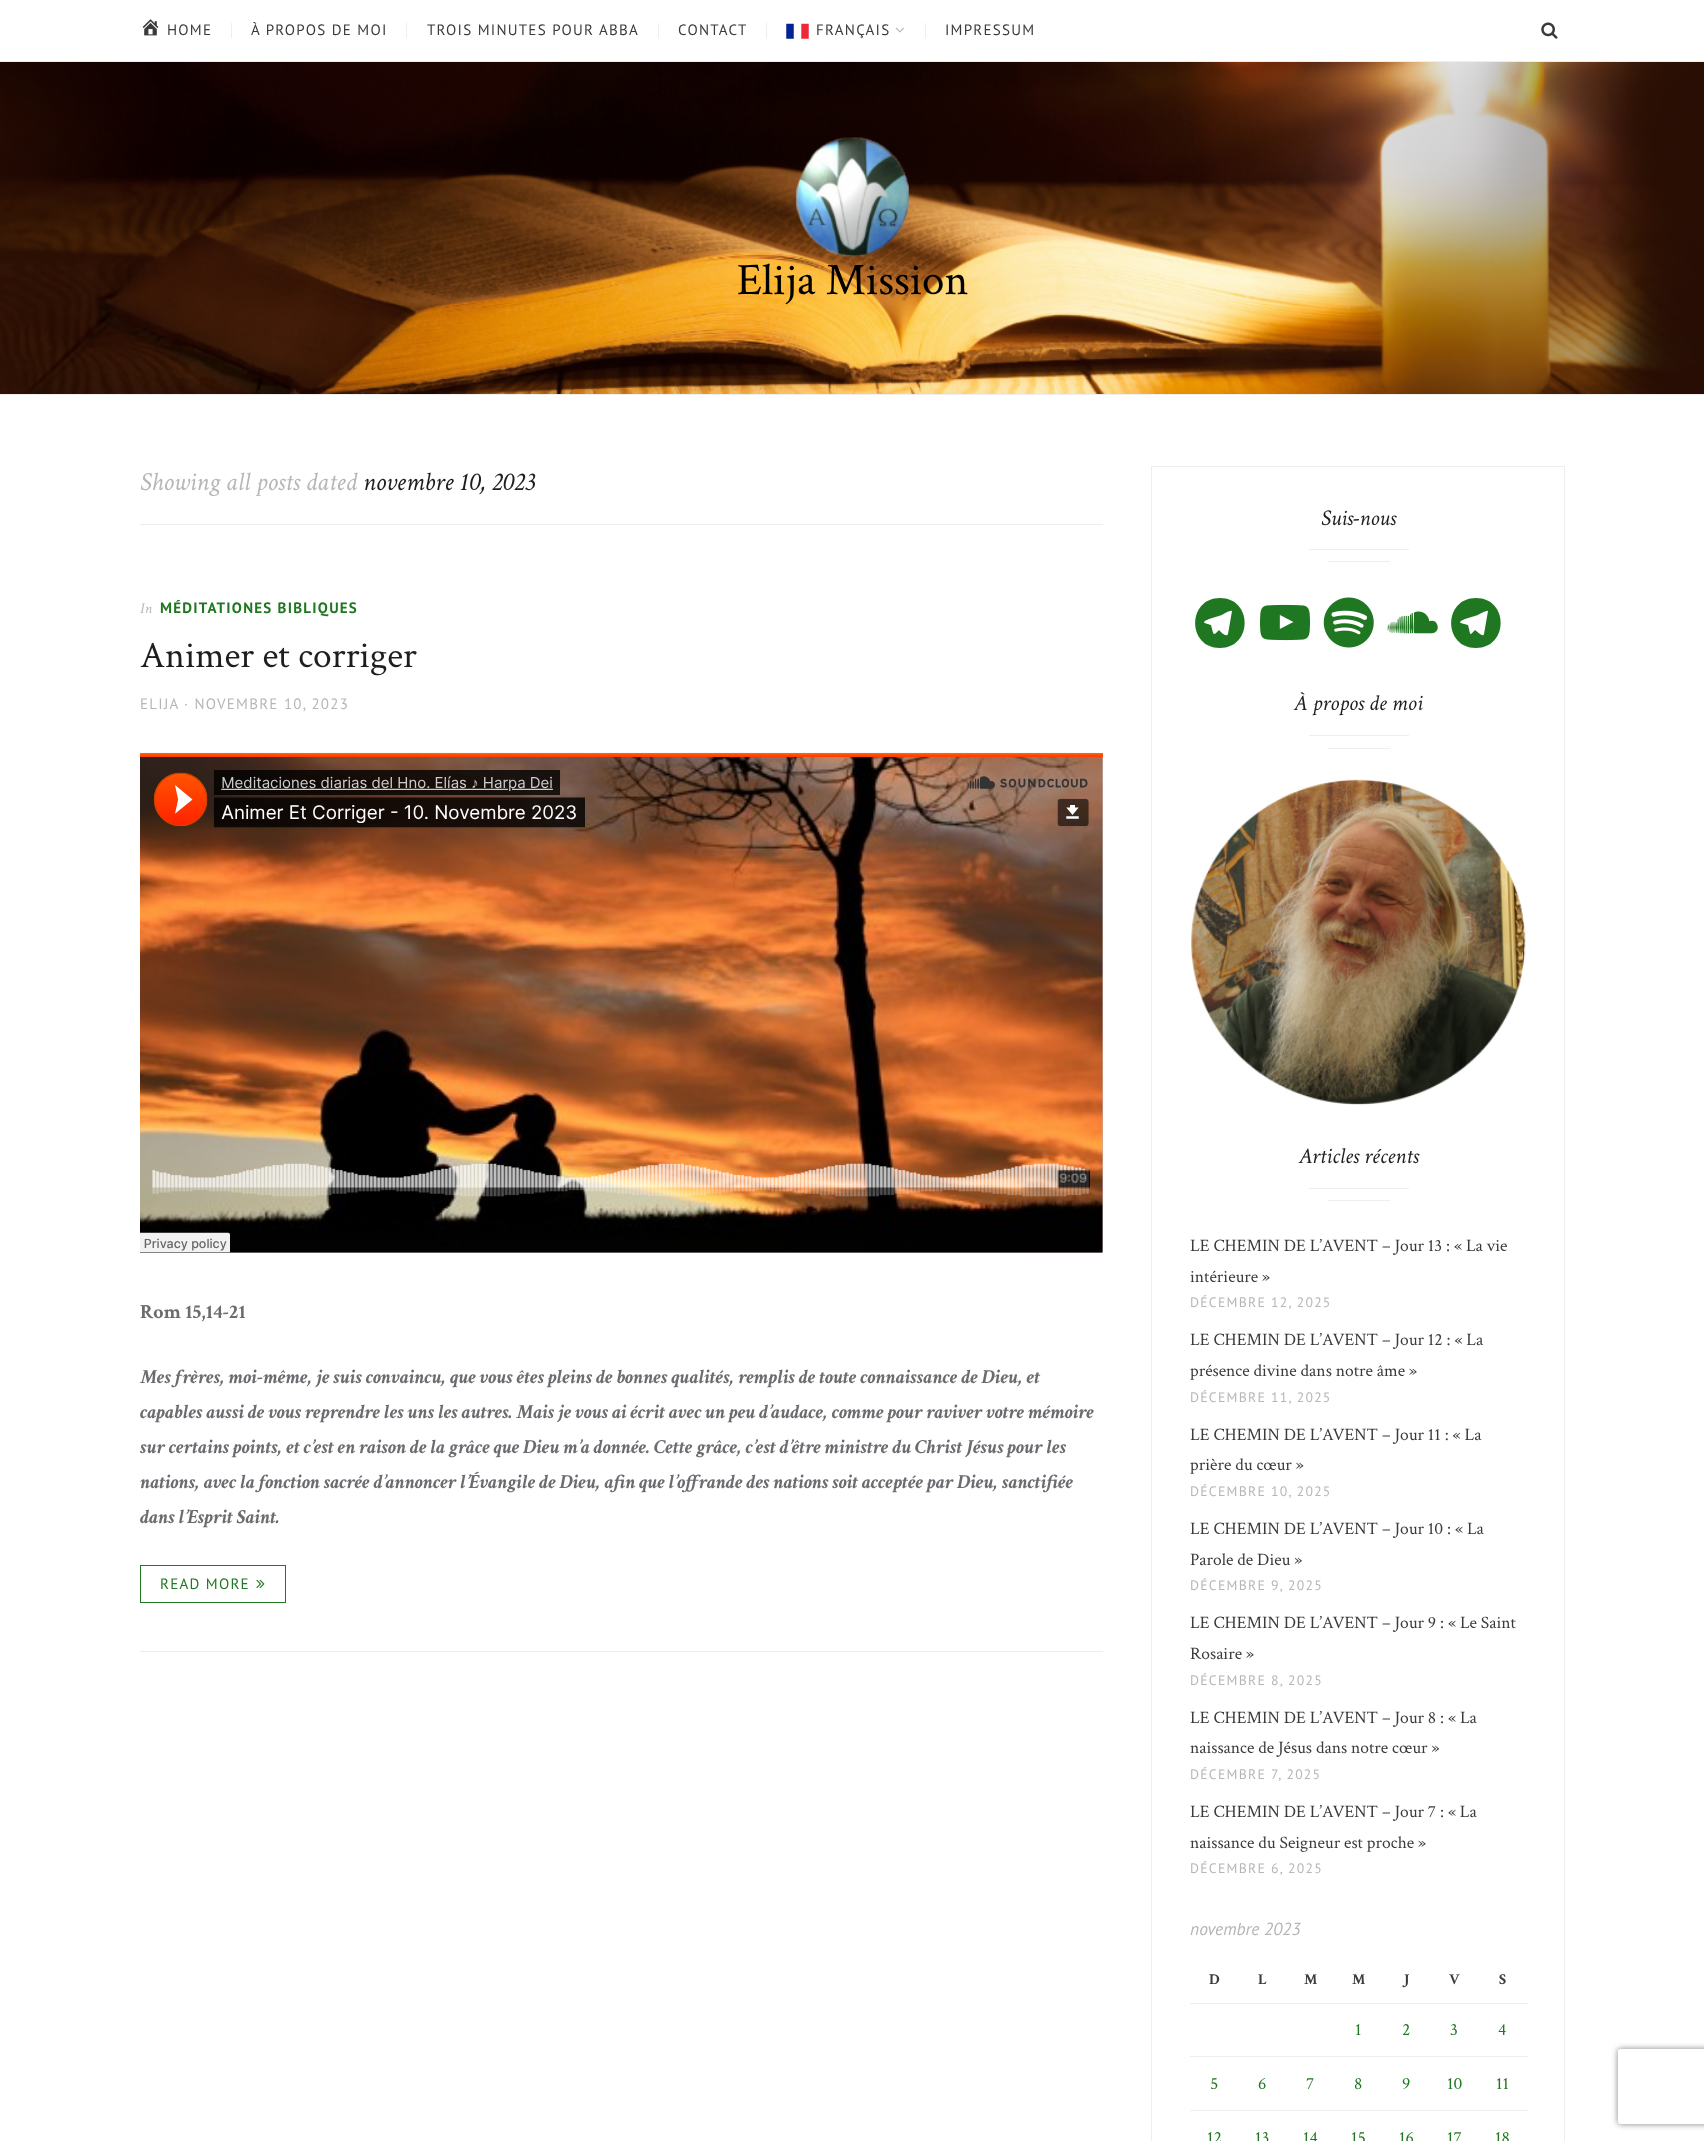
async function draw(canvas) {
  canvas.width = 1704
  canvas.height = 2141
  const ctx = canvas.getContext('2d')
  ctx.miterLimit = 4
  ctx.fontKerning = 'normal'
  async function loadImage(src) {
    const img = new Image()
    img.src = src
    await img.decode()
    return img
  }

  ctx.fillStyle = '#fff'
  ctx.fillRect(0, 0, 1704, 2141)
  ctx.drawImage(await loadImage('image0.png'), 142, 19, 17, 17)
  ctx.letterSpacing = '1.25px'
  ctx.font = '15px PT Sans'
  ctx.fillStyle = '#3a3b3d'
  ctx.fillText('HOME', 167, 35)
  ctx.fillStyle = '#eee'
  ctx.fillRect(231, 23, 1, 15)
  ctx.fillStyle = '#3a3b3d'
  ctx.fillText('À PROPOS DE MOI', 251, 35)
  ctx.fillStyle = '#eee'
  ctx.fillRect(406, 23, 1, 15)
  ctx.fillStyle = '#3a3b3d'
  ctx.fillText('TROIS MINUTES POUR ABBA', 427, 35)
  ctx.fillStyle = '#eee'
  ctx.fillRect(658, 23, 1, 15)
  ctx.fillStyle = '#3a3b3d'
  ctx.fillText('CONTACT', 678, 35)
  ctx.fillStyle = '#eee'
  ctx.fillRect(766, 23, 1, 16)
  ctx.drawImage(await loadImage('image1.png'), 786, 23, 23, 16)
  ctx.fillStyle = '#3a3b3d'
  ctx.fillText('FRANÇAIS', 816, 35)
  ctx.drawImage(await loadImage('image2.png'), 895, 27, 9, 6)
  ctx.fillStyle = '#eee'
  ctx.fillRect(925, 23, 1, 15)
  ctx.fillStyle = '#3a3b3d'
  ctx.fillText('IMPRESSUM', 945, 35)
  ctx.drawImage(await loadImage('image3.png'), 1541, 22, 17, 17)
  ctx.drawImage(await loadImage('image4.png'), 0, 62, 1704, 332)
  ctx.fillStyle = '#eee'
  ctx.fillRect(0, 61, 1704, 1)
  ctx.fillRect(0, 394, 1704, 1)
  ctx.drawImage(await loadImage('image5.png'), 796, 137, 113, 120)
  ctx.letterSpacing = '0px'
  ctx.font = '45px Crimson Text'
  ctx.fillStyle = '#000'
  ctx.fillText('Elija Mission', 737, 294)
  ctx.fillStyle = '#eee'
  ctx.fillRect(140, 524, 963, 1)
  ctx.font = 'italic 26.25px Crimson Text'
  ctx.fillStyle = '#b6b6b6'
  ctx.fillText('Showing all posts dated', 140, 490)
  ctx.fillStyle = '#1d1e1f'
  ctx.fillText('novembre 10, 2023', 363, 490)
  ctx.fillStyle = '#eee'
  ctx.fillRect(140, 1651, 963, 1)
  ctx.font = 'italic 15px Crimson Text'
  ctx.fillStyle = '#b6b6b6'
  ctx.fillText('In', 140, 613)
  ctx.letterSpacing = '1.25px'
  ctx.font = 'bold 15px PT Sans'
  ctx.fillStyle = '#207721'
  ctx.fillText('MÉDITATIONES BIBLIQUES', 160, 613)
  ctx.letterSpacing = '0px'
  ctx.font = '37.5px Crimson Text'
  ctx.fillStyle = '#1d1e1f'
  ctx.fillText('Animer et corriger', 140, 667)
  ctx.letterSpacing = '1.25px'
  ctx.font = '15px PT Sans'
  ctx.fillStyle = '#b6b6b6'
  ctx.fillText('ELIJA', 140, 709)
  ctx.fillText('· NOVEMBRE 10, 2023', 184, 709)
  ctx.drawImage(await loadImage('image6.png'), 140, 752, 963, 501)
  ctx.letterSpacing = '0px'
  ctx.font = 'bold 20px Crimson Text'
  ctx.fillStyle = '#6a6c6f'
  ctx.fillText('Rom 15,14-21', 140, 1318)
  ctx.font = 'italic bold 20px Crimson Text'
  ctx.fillText('Mes frères, moi-même, je suis convaincu, que vous êtes pleins de bonnes qualités, remplis de toute connaissance de Dieu, et', 140, 1383)
  ctx.fillText('capables aussi de vous reprendre les uns les autres. Mais je vous ai écrit avec un peu d’audace, comme pour raviver votre mémoire', 140, 1418)
  ctx.fillText('sur certains points, et c’est en raison de la grâce que Dieu m’a donnée. Cette grâce, c’est d’être ministre du Christ Jésus pour les', 140, 1453)
  ctx.fillText('nations, avec la fonction sacrée d’annoncer l’Évangile de Dieu, afin que l’offrande des nations soit acceptée par Dieu, sanctifiée', 140, 1488)
  ctx.fillText('dans l’Esprit Saint.', 140, 1523)
  ctx.strokeStyle = '#207721'
  ctx.strokeRect(140.5, 1565.5, 145, 37)
  ctx.letterSpacing = '1.25px'
  ctx.font = '15px PT Sans'
  ctx.fillStyle = '#207721'
  ctx.fillText('READ MORE', 160, 1589)
  ctx.drawImage(await loadImage('image7.png'), 256, 1579, 9, 10)
  ctx.strokeStyle = '#eee'
  ctx.strokeRect(1151.5, 466.5, 413, 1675)
  ctx.letterSpacing = '0px'
  ctx.font = 'italic 22.5px Crimson Text'
  ctx.fillStyle = '#1d1e1f'
  ctx.fillText('Suis-nous', 1321, 525)
  ctx.fillStyle = '#eee'
  ctx.fillRect(1309, 549, 100, 1)
  ctx.fillRect(1328, 561, 62, 1)
  ctx.fillStyle = '#207721'
  ctx.beginPath()
  ctx.moveTo(1220, 598)
  ctx.bezierCurveTo(1187, 598, 1187, 648, 1220, 648)
  ctx.bezierCurveTo(1253, 648, 1253, 598, 1220, 598)
  ctx.closePath()
  ctx.moveTo(1228, 634)
  ctx.bezierCurveTo(1226, 638, 1220, 631, 1219, 630)
  ctx.bezierCurveTo(1213, 636, 1214, 636, 1211, 625)
  ctx.bezierCurveTo(1205, 623, 1200, 623, 1209, 619)
  ctx.lineTo(1222, 615)
  ctx.bezierCurveTo(1223, 614, 1231, 610, 1232, 611)
  ctx.closePath()
  ctx.fill()
  ctx.drawImage(await loadImage('image8.png'), 1260, 604, 50, 37)
  ctx.drawImage(await loadImage('image9.png'), 1323, 597, 51, 51)
  ctx.drawImage(await loadImage('image10.png'), 1387, 611, 51, 23)
  ctx.beginPath()
  ctx.moveTo(1476, 598)
  ctx.bezierCurveTo(1443, 598, 1443, 648, 1476, 648)
  ctx.bezierCurveTo(1509, 648, 1509, 598, 1476, 598)
  ctx.closePath()
  ctx.moveTo(1484, 634)
  ctx.bezierCurveTo(1483, 638, 1477, 631, 1475, 630)
  ctx.bezierCurveTo(1469, 636, 1471, 636, 1468, 625)
  ctx.bezierCurveTo(1461, 623, 1456, 623, 1465, 619)
  ctx.lineTo(1478, 615)
  ctx.bezierCurveTo(1479, 614, 1488, 610, 1488, 611)
  ctx.closePath()
  ctx.fill()
  ctx.fillStyle = '#1d1e1f'
  ctx.fillText('À propos de moi', 1294, 710)
  ctx.fillStyle = '#eee'
  ctx.fillRect(1309, 735, 100, 1)
  ctx.fillRect(1328, 748, 62, 1)
  ctx.drawImage(await loadImage('image11.png'), 1191, 779, 335, 326)
  ctx.fillStyle = '#1d1e1f'
  ctx.fillText('Articles récents', 1299, 1163)
  ctx.fillStyle = '#eee'
  ctx.fillRect(1309, 1188, 100, 1)
  ctx.fillRect(1328, 1200, 62, 1)
  ctx.font = '17.5px Crimson Text'
  ctx.fillStyle = '#3a3b3d'
  ctx.fillText('LE CHEMIN DE L’AVENT – Jour 13 : « La vie', 1190, 1251)
  ctx.fillText('intérieure »', 1190, 1282)
  ctx.letterSpacing = '1.25px'
  ctx.font = '13.75px PT Sans'
  ctx.fillStyle = '#b6b6b6'
  ctx.fillText('DÉCEMBRE 12, 2025', 1190, 1307)
  ctx.letterSpacing = '0px'
  ctx.font = '17.5px Crimson Text'
  ctx.fillStyle = '#3a3b3d'
  ctx.fillText('LE CHEMIN DE L’AVENT – Jour 12 : « La', 1190, 1345)
  ctx.fillText('présence divine dans notre âme »', 1190, 1376)
  ctx.letterSpacing = '1.25px'
  ctx.font = '13.75px PT Sans'
  ctx.fillStyle = '#b6b6b6'
  ctx.fillText('DÉCEMBRE 11, 2025', 1190, 1402)
  ctx.letterSpacing = '0px'
  ctx.font = '17.5px Crimson Text'
  ctx.fillStyle = '#3a3b3d'
  ctx.fillText('LE CHEMIN DE L’AVENT – Jour 11 : « La', 1190, 1440)
  ctx.fillText('prière du cœur »', 1190, 1470)
  ctx.letterSpacing = '1.25px'
  ctx.font = '13.75px PT Sans'
  ctx.fillStyle = '#b6b6b6'
  ctx.fillText('DÉCEMBRE 10, 2025', 1190, 1496)
  ctx.letterSpacing = '0px'
  ctx.font = '17.5px Crimson Text'
  ctx.fillStyle = '#3a3b3d'
  ctx.fillText('LE CHEMIN DE L’AVENT – Jour 10 : « La', 1190, 1534)
  ctx.fillText('Parole de Dieu »', 1190, 1565)
  ctx.letterSpacing = '1.25px'
  ctx.font = '13.75px PT Sans'
  ctx.fillStyle = '#b6b6b6'
  ctx.fillText('DÉCEMBRE 9, 2025', 1190, 1590)
  ctx.letterSpacing = '0px'
  ctx.font = '17.5px Crimson Text'
  ctx.fillStyle = '#3a3b3d'
  ctx.fillText('LE CHEMIN DE L’AVENT – Jour 9 : « Le Saint', 1190, 1628)
  ctx.fillText('Rosaire »', 1190, 1659)
  ctx.letterSpacing = '1.25px'
  ctx.font = '13.75px PT Sans'
  ctx.fillStyle = '#b6b6b6'
  ctx.fillText('DÉCEMBRE 8, 2025', 1190, 1685)
  ctx.letterSpacing = '0px'
  ctx.font = '17.5px Crimson Text'
  ctx.fillStyle = '#3a3b3d'
  ctx.fillText('LE CHEMIN DE L’AVENT – Jour 8 : « La', 1190, 1723)
  ctx.fillText('naissance de Jésus dans notre cœur »', 1190, 1753)
  ctx.letterSpacing = '1.25px'
  ctx.font = '13.75px PT Sans'
  ctx.fillStyle = '#b6b6b6'
  ctx.fillText('DÉCEMBRE 7, 2025', 1190, 1779)
  ctx.letterSpacing = '0px'
  ctx.font = '17.5px Crimson Text'
  ctx.fillStyle = '#3a3b3d'
  ctx.fillText('LE CHEMIN DE L’AVENT – Jour 7 : « La', 1190, 1817)
  ctx.fillText('naissance du Seigneur est proche »', 1190, 1848)
  ctx.letterSpacing = '1.25px'
  ctx.font = '13.75px PT Sans'
  ctx.fillStyle = '#b6b6b6'
  ctx.fillText('DÉCEMBRE 6, 2025', 1190, 1873)
  ctx.letterSpacing = '0px'
  ctx.font = 'italic 17.5px PT Sans'
  ctx.fillText('novembre 2023', 1190, 1935)
  ctx.font = 'bold 15px Crimson Text'
  ctx.fillStyle = '#3a3b3d'
  ctx.fillText('D', 1209, 1984)
  ctx.fillText('L', 1258, 1984)
  ctx.fillText('M', 1304, 1984)
  ctx.fillText('M', 1352, 1984)
  ctx.fillText('J', 1404, 1984)
  ctx.fillText('V', 1449, 1984)
  ctx.fillText('S', 1499, 1984)
  ctx.font = '17.5px Crimson Text'
  ctx.fillStyle = '#207721'
  ctx.fillText('1', 1355, 2035)
  ctx.fillText('2', 1402, 2035)
  ctx.fillText('3', 1450, 2035)
  ctx.fillStyle = '#eee'
  ctx.fillRect(1190, 2003, 338, 1)
  ctx.fillStyle = '#207721'
  ctx.fillText('4', 1498, 2035)
  ctx.fillText('5', 1210, 2089)
  ctx.fillText('6', 1258, 2089)
  ctx.fillText('7', 1306, 2089)
  ctx.fillText('8', 1354, 2089)
  ctx.fillText('9', 1402, 2089)
  ctx.fillText('10', 1447, 2089)
  ctx.fillStyle = '#eee'
  ctx.fillRect(1190, 2056, 338, 1)
  ctx.fillStyle = '#207721'
  ctx.fillText('11', 1496, 2089)
  ctx.fillText('12', 1207, 2143)
  ctx.fillText('13', 1255, 2143)
  ctx.fillText('14', 1303, 2143)
  ctx.fillText('15', 1351, 2143)
  ctx.fillText('16', 1399, 2143)
  ctx.fillText('17', 1447, 2143)
  ctx.fillStyle = '#eee'
  ctx.fillRect(1190, 2110, 338, 1)
  ctx.fillStyle = '#207721'
  ctx.fillText('18', 1495, 2143)
  ctx.save()
  ctx.beginPath()
  ctx.moveTo(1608, 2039)
  ctx.lineTo(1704, 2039)
  ctx.lineTo(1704, 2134)
  ctx.lineTo(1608, 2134)
  ctx.closePath()
  ctx.moveTo(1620.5, 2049)
  ctx.lineTo(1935.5, 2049)
  ctx.bezierCurveTo(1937, 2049, 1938, 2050, 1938, 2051.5)
  ctx.lineTo(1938, 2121.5)
  ctx.bezierCurveTo(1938, 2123, 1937, 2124, 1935.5, 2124)
  ctx.lineTo(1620.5, 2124)
  ctx.bezierCurveTo(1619, 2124, 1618, 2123, 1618, 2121.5)
  ctx.lineTo(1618, 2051.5)
  ctx.bezierCurveTo(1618, 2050, 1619, 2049, 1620.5, 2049)
  ctx.closePath()
  ctx.clip('evenodd')
  ctx.fillStyle = '#808080'
  ctx.filter = 'blur(3px)'
  ctx.beginPath()
  ctx.roundRect(1618, 2049, 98, 75, 2.5)
  ctx.fill()
  ctx.filter = 'none'
  ctx.restore()
}

draw(document.querySelector('canvas'))
